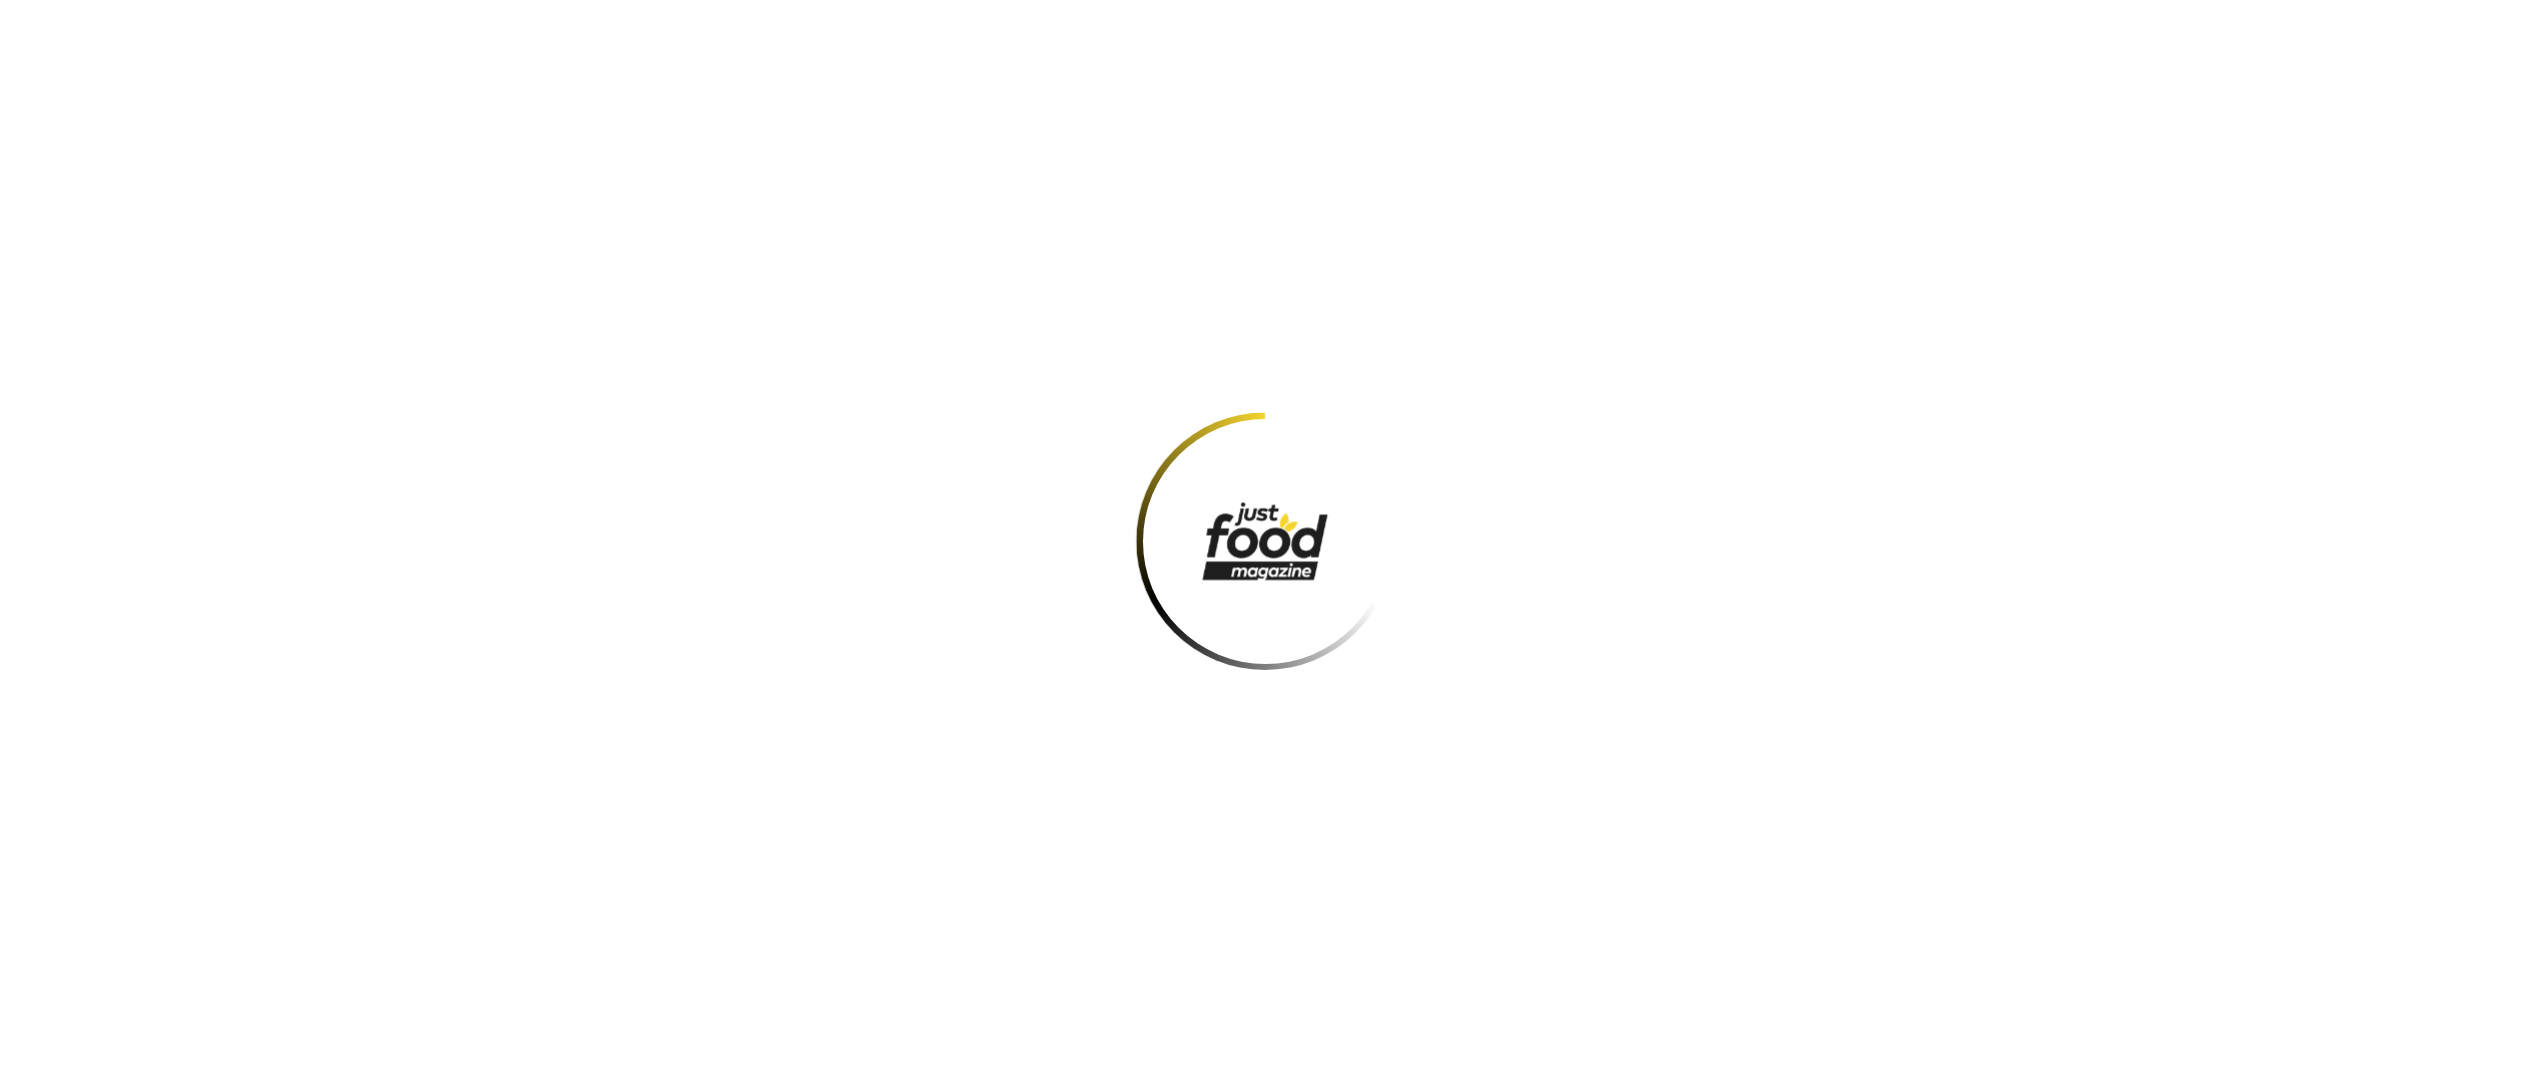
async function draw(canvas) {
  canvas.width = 2528
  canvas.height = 1081
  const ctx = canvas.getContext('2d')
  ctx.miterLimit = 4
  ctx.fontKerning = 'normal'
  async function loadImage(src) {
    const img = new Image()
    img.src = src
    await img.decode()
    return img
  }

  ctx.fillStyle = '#fff'
  ctx.fillRect(0, 0, 2528, 1081)
  ctx.drawImage(await loadImage('image0.png'), 1135, 412, 240, 258)
  ctx.beginPath()
  ctx.arc(1265.5, 541.5, 122.5, 0, 2 * Math.PI)
  ctx.fill()
  ctx.drawImage(await loadImage('image1.png'), 1202, 502, 127, 79)
}

draw(document.querySelector('canvas'))
